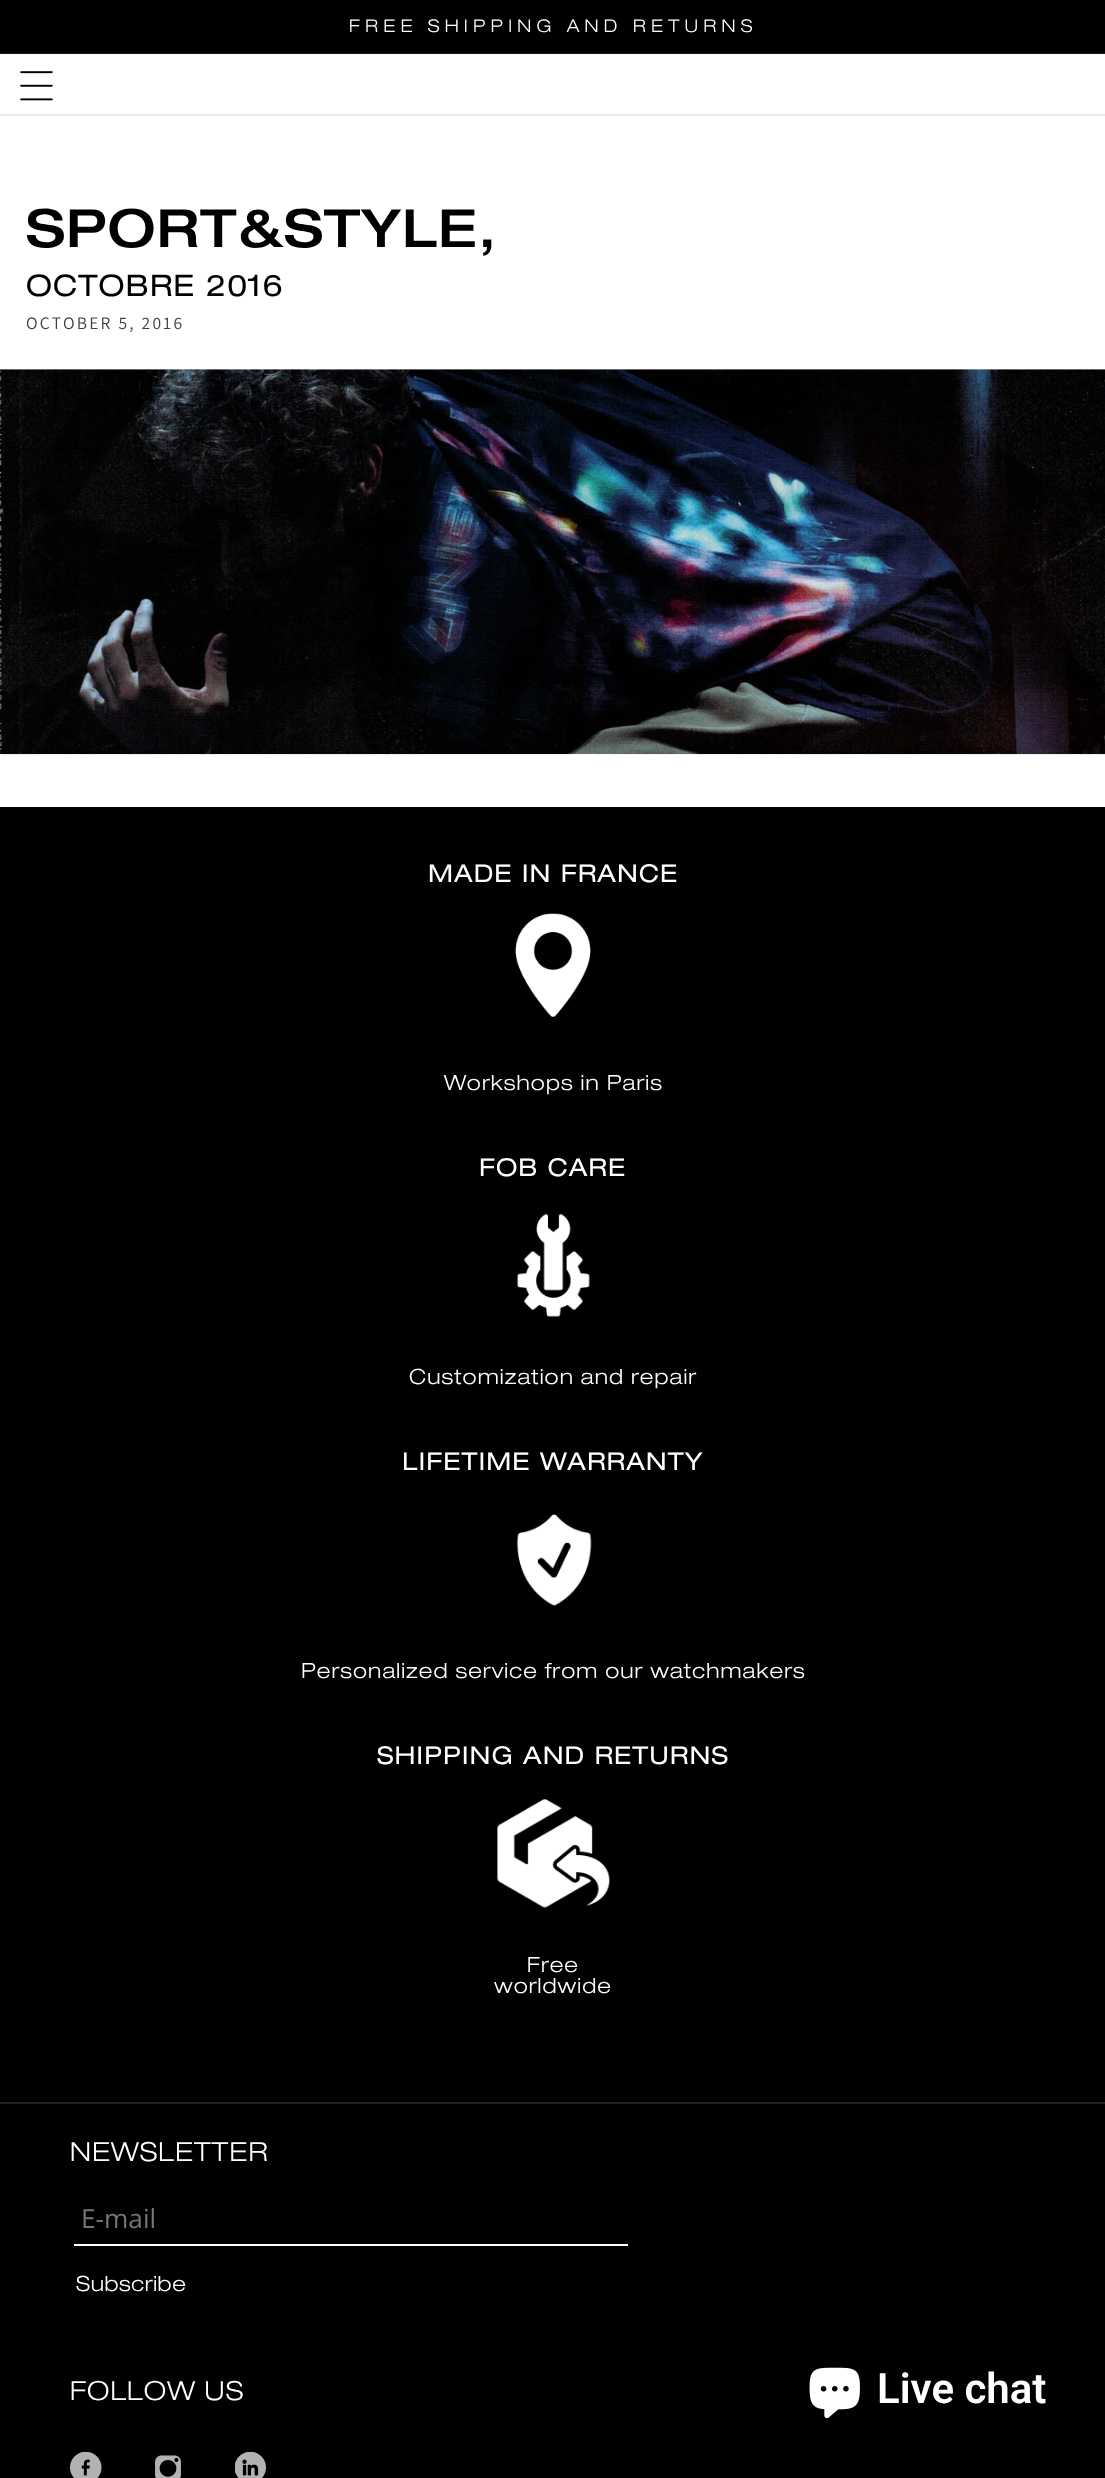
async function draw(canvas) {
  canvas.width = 1105
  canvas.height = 2478
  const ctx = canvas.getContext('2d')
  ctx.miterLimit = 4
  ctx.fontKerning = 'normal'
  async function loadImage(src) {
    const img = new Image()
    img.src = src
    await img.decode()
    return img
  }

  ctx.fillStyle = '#fff'
  ctx.fillRect(0, 0, 1105, 2478)
  ctx.fillStyle = '#000'
  ctx.fillRect(0, 0, 1105, 53)
  ctx.fillStyle = '#141414'
  ctx.fillRect(0, 53, 1105, 1)
  ctx.letterSpacing = '5.25px'
  ctx.font = '300 17.5px Helvetica Neue'
  ctx.fillStyle = '#fff'
  ctx.fillText('FREE SHIPPING AND RETURNS', 349, 32)
  ctx.fillStyle = '#ebebeb'
  ctx.fillRect(0, 114, 1105, 2)
  ctx.drawImage(await loadImage('image0.png'), 20, 71, 33, 30)
  ctx.letterSpacing = '1.05px'
  ctx.font = '500 52.5px Helvetica Neue'
  ctx.fillStyle = '#000'
  ctx.fillText('SPORT&STYLE,', 26, 247)
  ctx.font = '29.75px Helvetica Neue'
  ctx.fillText('OCTOBRE 2016', 26, 296)
  ctx.letterSpacing = '2.25px'
  ctx.font = '17.5px Assistant'
  ctx.fillStyle = '#404040'
  ctx.fillText('OCTOBER 5, 2016', 26, 329)
  ctx.fillStyle = '#e6e6e6'
  ctx.fillRect(0, 369, 1105, 1)
  ctx.drawImage(await loadImage('image1.png'), 0, 369, 1105, 386)
  ctx.fillStyle = '#000'
  ctx.fillRect(0, 807, 1105, 1671)
  ctx.letterSpacing = '1.05px'
  ctx.font = '24.5px Helvetica Neue'
  ctx.fillStyle = '#fff'
  ctx.fillText('MADE IN FRANCE', 428, 882)
  ctx.drawImage(await loadImage('image2.png'), 515, 913, 76, 104)
  ctx.font = '300 21px Helvetica Neue'
  ctx.fillText('Workshops in Paris', 444, 1090)
  ctx.font = '24.5px Helvetica Neue'
  ctx.fillText('FOB CARE', 479, 1176)
  ctx.drawImage(await loadImage('image3.png'), 517, 1213, 73, 104)
  ctx.font = '300 21px Helvetica Neue'
  ctx.fillText('Customization and repair', 409, 1384)
  ctx.font = '24.5px Helvetica Neue'
  ctx.fillText('LIFETIME WARRANTY', 402, 1470)
  ctx.drawImage(await loadImage('image4.png'), 517, 1514, 75, 92)
  ctx.font = '300 21px Helvetica Neue'
  ctx.fillText('Personalized service from our watchmakers', 301, 1678)
  ctx.font = '24.5px Helvetica Neue'
  ctx.fillText('SHIPPING AND RETURNS', 377, 1764)
  ctx.drawImage(await loadImage('image5.png'), 497, 1799, 113, 109)
  ctx.font = '300 21px Helvetica Neue'
  ctx.fillText('Free', 527, 1972)
  ctx.fillText('worldwide', 494, 1993)
  ctx.fillStyle = '#242321'
  ctx.fillRect(0, 2102, 1105, 2)
  ctx.font = '300 26.25px Helvetica Neue'
  ctx.fillStyle = '#fff'
  ctx.fillText('NEWSLETTER', 70, 2161)
  ctx.fillRect(74, 2244, 554, 2)
  ctx.letterSpacing = '0px'
  ctx.font = '26.25px Open Sans'
  ctx.fillStyle = '#757575'
  ctx.fillText('E-mail', 81, 2228)
  ctx.letterSpacing = '0.6px'
  ctx.font = '300 21px Helvetica Neue'
  ctx.fillStyle = '#fff'
  ctx.fillText('Subscribe', 76, 2291)
  ctx.letterSpacing = '1.05px'
  ctx.font = '300 26.25px Helvetica Neue'
  ctx.fillText('FOLLOW US', 70, 2400)
  ctx.drawImage(await loadImage('image6.png'), 70, 2452, 32, 26)
  ctx.drawImage(await loadImage('image7.png'), 155, 2455, 26, 23)
  ctx.drawImage(await loadImage('image8.png'), 235, 2452, 31, 26)
  ctx.drawImage(await loadImage('image9.png'), 809, 2367, 51, 52)
  ctx.letterSpacing = '0px'
  ctx.font = '600 42px Roboto'
  ctx.fillText('Live chat', 877, 2403)
}

draw(document.querySelector('canvas'))
